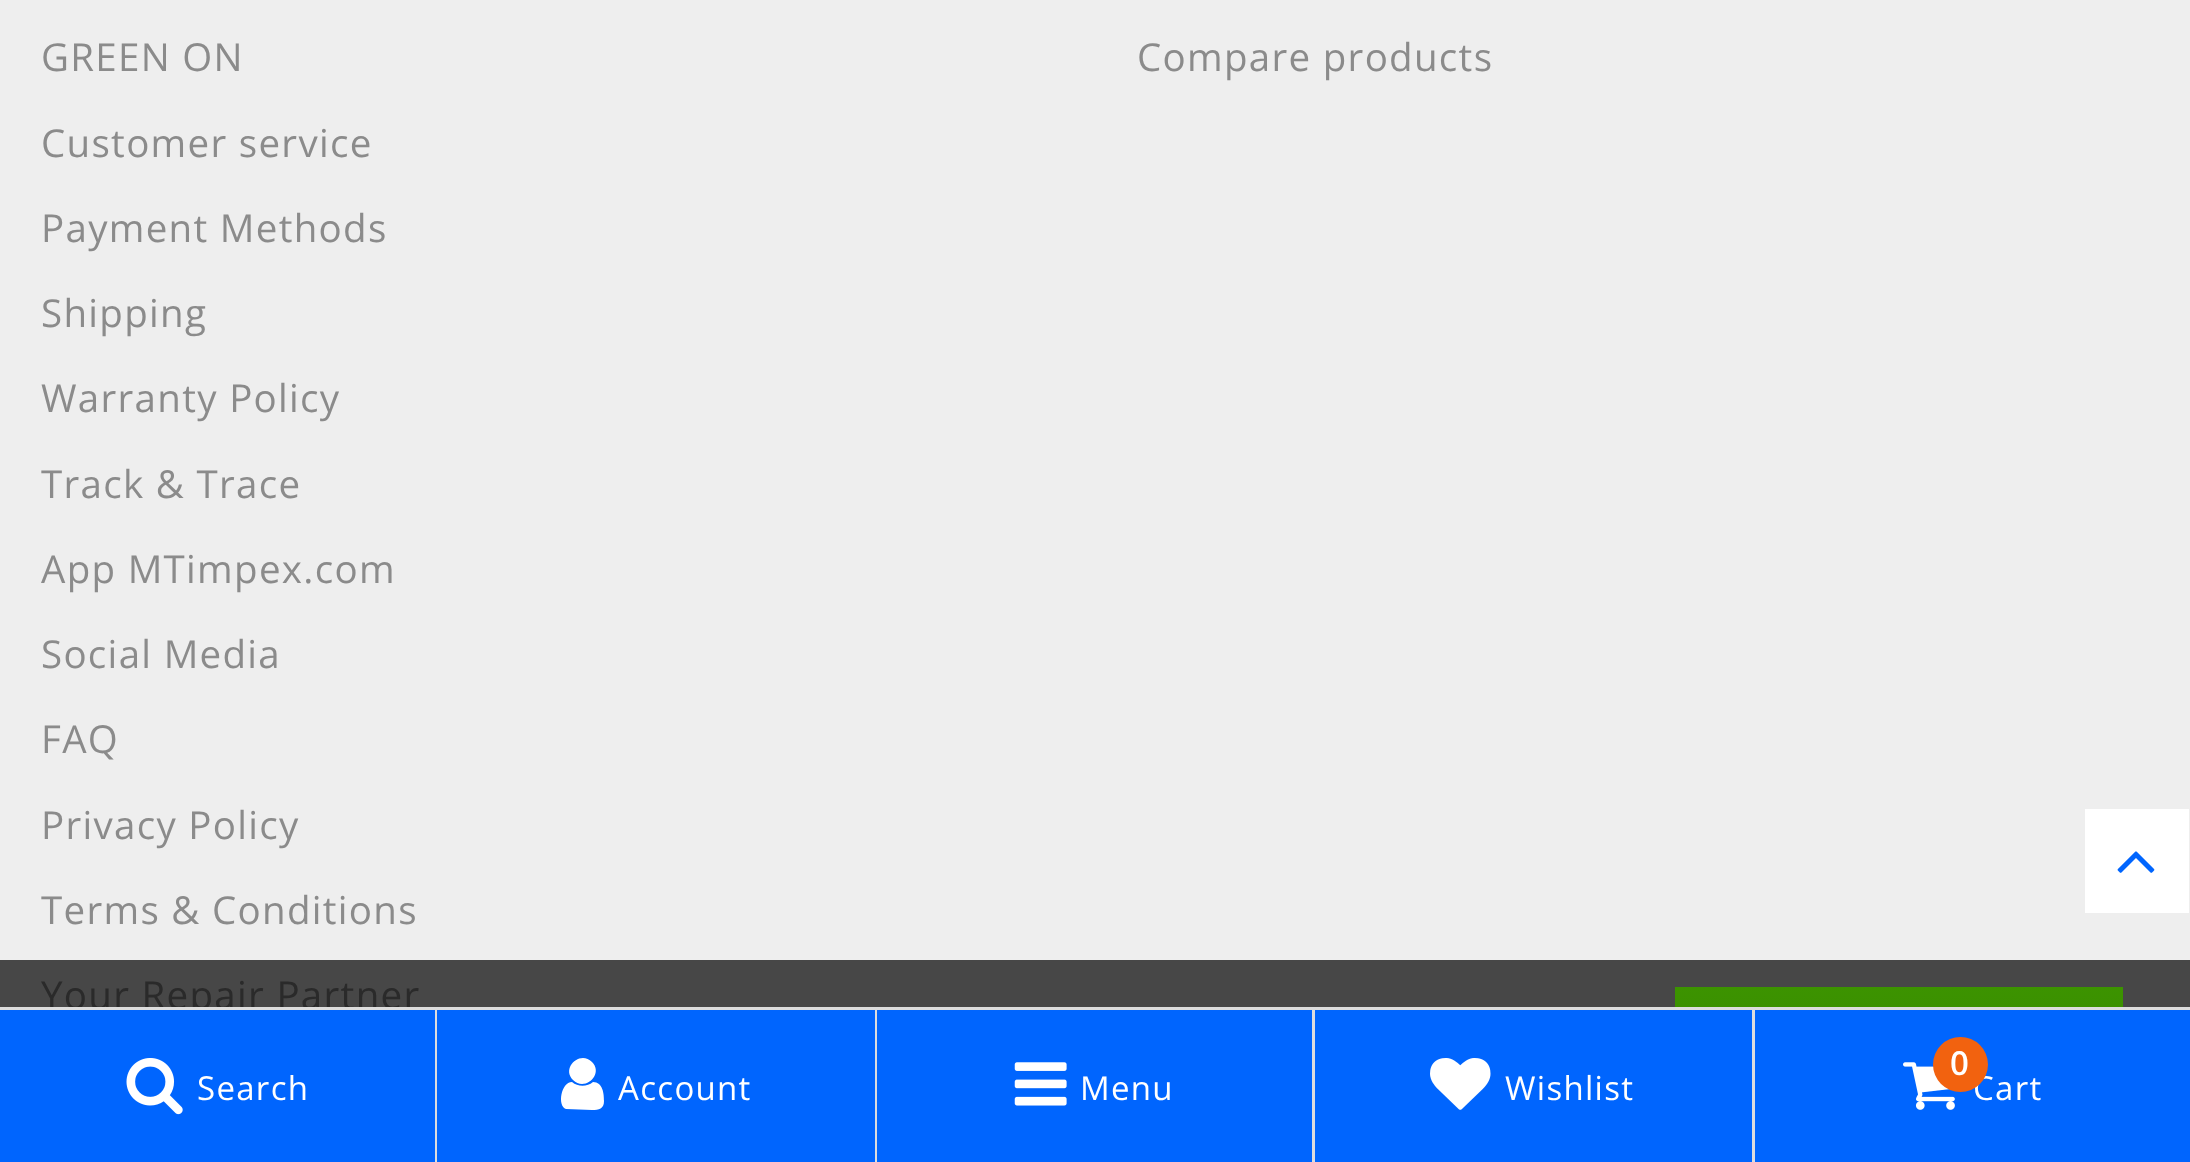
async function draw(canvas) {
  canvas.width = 2190
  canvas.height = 1162
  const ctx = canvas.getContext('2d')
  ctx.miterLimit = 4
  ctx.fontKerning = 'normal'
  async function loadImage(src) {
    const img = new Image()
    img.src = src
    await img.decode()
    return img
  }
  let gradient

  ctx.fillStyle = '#eee'
  ctx.fillRect(0, 0, 2190, 1162)
  ctx.fillStyle = '#474747'
  ctx.fillRect(0, 960, 2190, 47)
  ctx.letterSpacing = '1.3px'
  ctx.font = '38.5px Open Sans'
  ctx.fillStyle = '#8b8b8b'
  ctx.fillText('GREEN ON', 41, 71)
  ctx.fillText('Customer service', 41, 157)
  ctx.fillText('Payment Methods', 41, 242)
  ctx.fillText('Shipping', 41, 327)
  ctx.fillText('Warranty Policy', 41, 412)
  ctx.fillText('Track & Trace', 41, 498)
  ctx.fillText('App MTimpex.com', 41, 583)
  ctx.fillText('Social Media', 41, 668)
  ctx.fillText('FAQ', 41, 753)
  ctx.fillText('Privacy Policy', 41, 839)
  ctx.fillText('Terms & Conditions', 41, 924)
  ctx.fillStyle = '#2a2a2a'
  ctx.fillText('Your Repair Partner', 41, 1009)
  ctx.fillStyle = '#8b8b8b'
  ctx.fillText('Compare products', 1137, 71)
  ctx.fillStyle = '#fff'
  ctx.fillRect(2085, 809, 104, 104)
  ctx.drawImage(await loadImage('image0.png'), 2117, 851, 38, 22)
  gradient = ctx.createLinearGradient(1899, 987, 1899, 1070)
  gradient.addColorStop(0, '#3c9300')
  gradient.addColorStop(1, '#398a00')
  ctx.fillStyle = gradient
  ctx.fillRect(1675, 987, 448, 20)
  ctx.fillStyle = '#0065fe'
  ctx.fillRect(0, 1010, 435, 152)
  ctx.fillStyle = '#ddd'
  ctx.fillRect(0, 1007, 2190, 3)
  ctx.fillRect(435, 1007, 2, 155)
  ctx.drawImage(await loadImage('image1.png'), 126, 1058, 57, 57)
  ctx.font = '33px Open Sans'
  ctx.fillStyle = '#fff'
  ctx.fillText('Search', 197, 1100)
  ctx.fillStyle = '#0065fe'
  ctx.fillRect(437, 1010, 438, 152)
  ctx.fillStyle = '#ddd'
  ctx.fillRect(875, 1007, 2, 155)
  ctx.fillStyle = '#fff'
  ctx.beginPath()
  ctx.moveTo(604, 1101)
  ctx.bezierCurveTo(604, 1109, 599, 1110, 592, 1110)
  ctx.lineTo(566, 1109)
  ctx.bezierCurveTo(557, 1106, 561, 1082, 572, 1082)
  ctx.bezierCurveTo(578, 1087, 587, 1087, 593, 1082)
  ctx.bezierCurveTo(603, 1082, 604, 1094, 604, 1101)
  ctx.closePath()
  ctx.moveTo(592, 1062)
  ctx.bezierCurveTo(604, 1074, 585, 1092, 573, 1080)
  ctx.bezierCurveTo(561, 1068, 580, 1050, 592, 1062)
  ctx.closePath()
  ctx.fill()
  ctx.fillText('Account', 618, 1100)
  ctx.fillStyle = '#0065fe'
  ctx.fillRect(877, 1010, 435, 152)
  ctx.fillStyle = '#ddd'
  ctx.fillRect(1312, 1007, 3, 155)
  ctx.drawImage(await loadImage('image2.png'), 1014, 1062, 53, 44)
  ctx.fillStyle = '#fff'
  ctx.fillText('Menu', 1080, 1100)
  ctx.fillStyle = '#0065fe'
  ctx.fillRect(1315, 1010, 437, 152)
  ctx.fillStyle = '#ddd'
  ctx.fillRect(1752, 1007, 3, 155)
  ctx.drawImage(await loadImage('image3.png'), 1430, 1058, 61, 52)
  ctx.fillStyle = '#fff'
  ctx.fillText('Wishlist', 1505, 1100)
  ctx.fillStyle = '#0065fe'
  ctx.fillRect(1755, 1010, 435, 152)
  ctx.drawImage(await loadImage('image4.png'), 1903, 1062, 52, 48)
  ctx.fillStyle = '#fff'
  ctx.fillText('Cart', 1973, 1100)
  ctx.fillStyle = '#f2620f'
  ctx.beginPath()
  ctx.arc(1960.5, 1064.5, 27.5, 0, 2 * Math.PI)
  ctx.fill()
  ctx.font = '600 33px Open Sans'
  ctx.fillStyle = '#fff'
  ctx.fillText('0', 1950, 1075)
}

draw(document.querySelector('canvas'))
